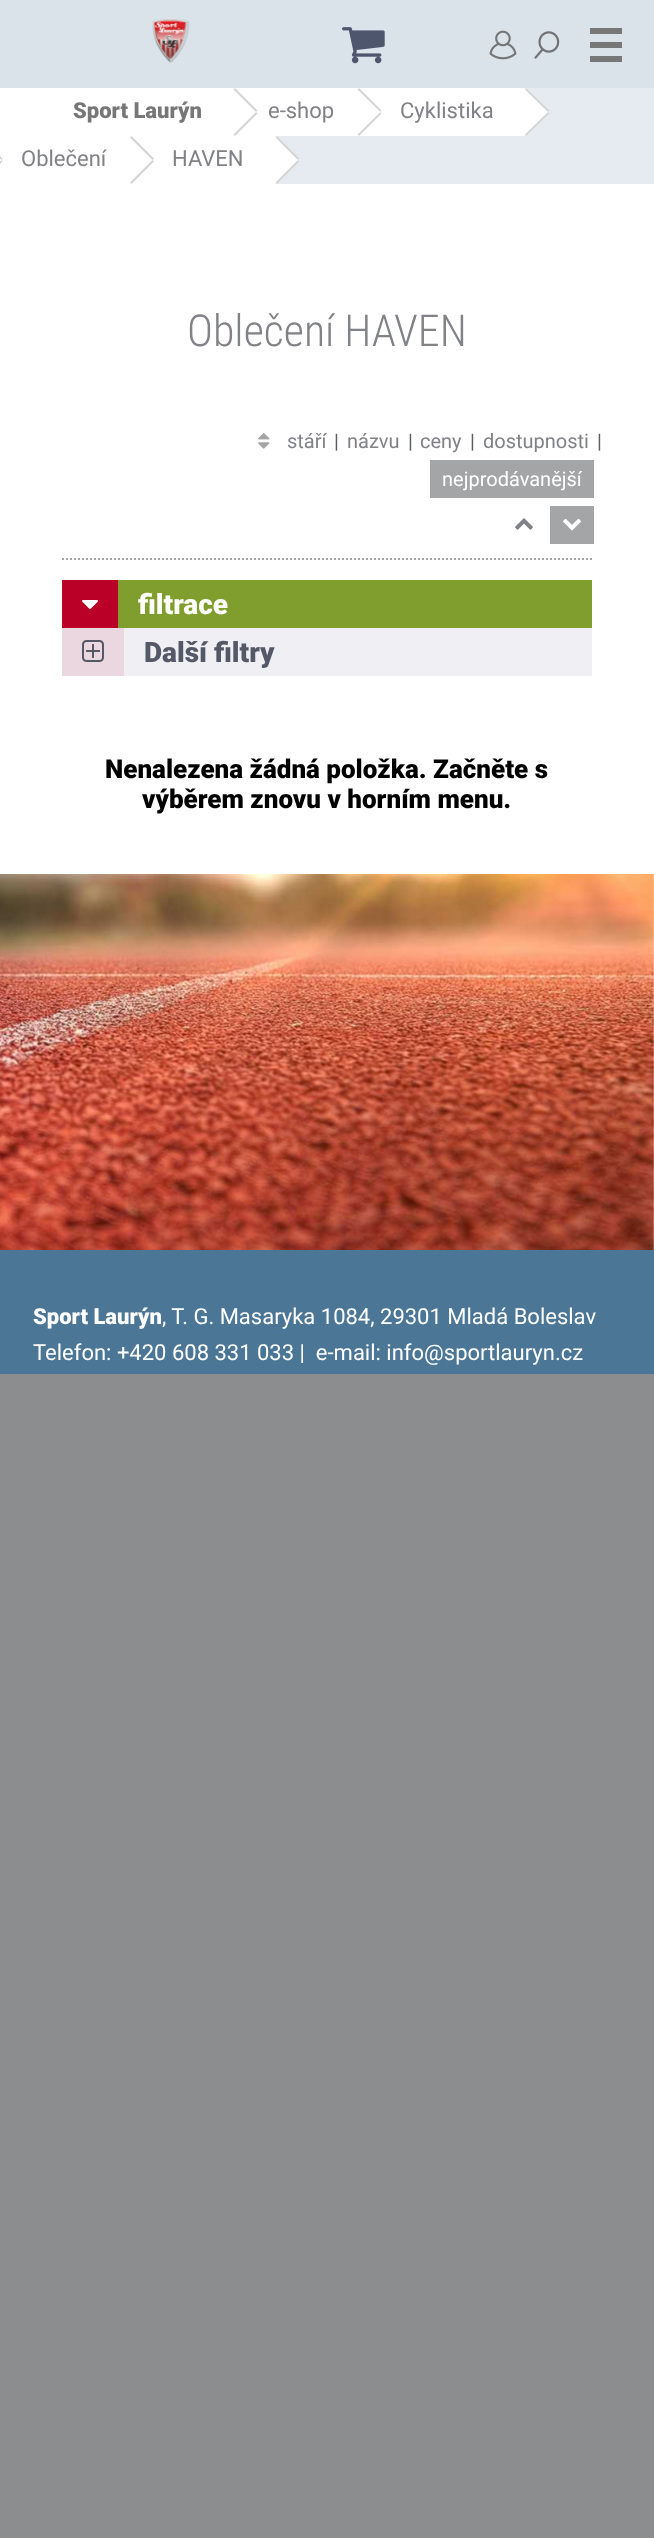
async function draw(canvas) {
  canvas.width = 654
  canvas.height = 2538
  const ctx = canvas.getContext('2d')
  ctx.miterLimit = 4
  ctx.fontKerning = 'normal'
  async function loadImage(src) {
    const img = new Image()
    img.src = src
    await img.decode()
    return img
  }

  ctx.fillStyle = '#8c8d8e'
  ctx.fillRect(0, 0, 654, 2538)
  ctx.fillStyle = '#fff'
  ctx.fillRect(0, 88, 654, 1162)
  ctx.fillStyle = '#dae3ea'
  ctx.fillRect(0, 0, 654, 88)
  ctx.drawImage(await loadImage('image0.png'), 152, 18, 38, 45)
  ctx.drawImage(await loadImage('image1.png'), 342, 27, 43, 37)
  ctx.drawImage(await loadImage('image2.png'), 489, 30, 28, 30)
  ctx.drawImage(await loadImage('image3.png'), 534, 31, 26, 28)
  ctx.fillStyle = '#777'
  ctx.fillRect(590, 28, 32, 6)
  ctx.fillRect(590, 42, 32, 6)
  ctx.fillRect(590, 56, 32, 6)
  ctx.fillStyle = '#e5ebf0'
  ctx.fillRect(274, 88, 380, 96)
  ctx.font = '900 22px Roboto'
  ctx.fillStyle = '#777'
  ctx.fillText('Sport Laurýn', 73, 118)
  ctx.fillStyle = '#d6d4d4'
  ctx.beginPath()
  ctx.moveTo(235, 88)
  ctx.lineTo(257.5, 110.5)
  ctx.lineTo(256, 112)
  ctx.lineTo(233.5, 89.5)
  ctx.closePath()
  ctx.moveTo(256, 112)
  ctx.lineTo(257.5, 113.5)
  ctx.lineTo(235, 136)
  ctx.lineTo(233.5, 134.5)
  ctx.closePath()
  ctx.fill()
  ctx.fillStyle = '#fff'
  ctx.fillRect(274, 88, 86, 48)
  ctx.font = '22px Roboto'
  ctx.fillStyle = '#818287'
  ctx.fillText('e-shop', 268, 118)
  ctx.fillStyle = '#fff'
  ctx.beginPath()
  ctx.moveTo(368, 89)
  ctx.lineTo(388, 109)
  ctx.bezierCurveTo(390, 111, 390, 113, 388, 115)
  ctx.lineTo(368, 135)
  ctx.bezierCurveTo(367, 136, 364, 136, 363, 135)
  ctx.lineTo(343, 115)
  ctx.bezierCurveTo(341, 113, 341, 111, 343, 109)
  ctx.lineTo(363, 89)
  ctx.bezierCurveTo(364, 88, 367, 88, 368, 89)
  ctx.closePath()
  ctx.fill()
  ctx.fillRect(360, 88, 164, 48)
  ctx.fillStyle = '#d6d4d4'
  ctx.beginPath()
  ctx.moveTo(359, 88)
  ctx.lineTo(381.5, 110.5)
  ctx.lineTo(380.5, 112)
  ctx.lineTo(357.5, 89.5)
  ctx.closePath()
  ctx.moveTo(380.5, 112)
  ctx.lineTo(381.5, 113.5)
  ctx.lineTo(359, 136)
  ctx.lineTo(357.5, 134.5)
  ctx.closePath()
  ctx.fill()
  ctx.fillStyle = '#818287'
  ctx.fillText('Cyklistika', 400, 118)
  ctx.fillStyle = '#fff'
  ctx.beginPath()
  ctx.moveTo(528, 89)
  ctx.lineTo(548, 109)
  ctx.bezierCurveTo(549, 111, 549, 113, 548, 115)
  ctx.lineTo(528, 135)
  ctx.bezierCurveTo(527, 136, 524, 136, 522, 135)
  ctx.lineTo(503, 115)
  ctx.bezierCurveTo(501, 113, 501, 111, 503, 109)
  ctx.lineTo(522, 89)
  ctx.bezierCurveTo(524, 88, 527, 88, 528, 89)
  ctx.closePath()
  ctx.fill()
  ctx.fillStyle = '#d6d4d4'
  ctx.beginPath()
  ctx.moveTo(526.5, 88)
  ctx.lineTo(549.5, 110.5)
  ctx.lineTo(548, 112)
  ctx.lineTo(525, 89.5)
  ctx.closePath()
  ctx.moveTo(548, 112)
  ctx.lineTo(549.5, 113.5)
  ctx.lineTo(526.5, 136)
  ctx.lineTo(525, 134.5)
  ctx.closePath()
  ctx.fill()
  ctx.beginPath()
  ctx.moveTo(-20, 136)
  ctx.lineTo(2.5, 158.5)
  ctx.lineTo(1.5, 160)
  ctx.lineTo(-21.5, 137.5)
  ctx.closePath()
  ctx.moveTo(1.5, 160)
  ctx.lineTo(2.5, 161.5)
  ctx.lineTo(-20, 184)
  ctx.lineTo(-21.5, 182.5)
  ctx.closePath()
  ctx.fill()
  ctx.fillStyle = '#818287'
  ctx.fillText('Oblečení', 21, 166)
  ctx.fillStyle = '#d6d4d4'
  ctx.beginPath()
  ctx.moveTo(131.5, 136)
  ctx.lineTo(154, 158.5)
  ctx.lineTo(152.5, 160)
  ctx.lineTo(130, 137.5)
  ctx.closePath()
  ctx.moveTo(152.5, 160)
  ctx.lineTo(154, 161.5)
  ctx.lineTo(131.5, 184)
  ctx.lineTo(130, 182.5)
  ctx.closePath()
  ctx.fill()
  ctx.fillStyle = '#818287'
  ctx.fillText('HAVEN', 172, 166)
  ctx.fillStyle = '#fff'
  ctx.beginPath()
  ctx.moveTo(278, 137)
  ctx.lineTo(298, 157)
  ctx.bezierCurveTo(300, 159, 300, 161, 298, 163)
  ctx.lineTo(278, 183)
  ctx.bezierCurveTo(277, 184, 274, 184, 273, 183)
  ctx.lineTo(253, 163)
  ctx.bezierCurveTo(251, 161, 251, 159, 253, 157)
  ctx.lineTo(273, 137)
  ctx.bezierCurveTo(274, 136, 277, 136, 278, 137)
  ctx.closePath()
  ctx.fill()
  ctx.fillStyle = '#d6d4d4'
  ctx.beginPath()
  ctx.moveTo(277, 136)
  ctx.lineTo(299.5, 158.5)
  ctx.lineTo(298, 160)
  ctx.lineTo(275.5, 137.5)
  ctx.closePath()
  ctx.moveTo(298, 160)
  ctx.lineTo(299.5, 161.5)
  ctx.lineTo(277, 184)
  ctx.lineTo(275.5, 182.5)
  ctx.closePath()
  ctx.fill()
  ctx.font = '300 44px Roboto Condensed'
  ctx.fillStyle = '#818287'
  ctx.fillText('Oblečení HAVEN', 187, 346)
  ctx.beginPath()
  ctx.moveTo(62, 559)
  ctx.lineTo(592, 559)
  ctx.strokeStyle = '#a4a5a7'
  ctx.lineWidth = 2
  ctx.setLineDash([2, 2])
  ctx.stroke()
  ctx.drawImage(await loadImage('image4.png'), 258, 433, 12, 16)
  ctx.font = '20px Roboto'
  ctx.fillText('stáří', 287, 448)
  ctx.fillStyle = '#5b5e64'
  ctx.fillText('|', 334, 448)
  ctx.fillStyle = '#818287'
  ctx.fillText('názvu', 347, 448)
  ctx.fillStyle = '#5b5e64'
  ctx.fillText('|', 408, 448)
  ctx.fillStyle = '#818287'
  ctx.fillText('ceny', 420, 448)
  ctx.fillStyle = '#5b5e64'
  ctx.fillText('|', 470, 448)
  ctx.fillStyle = '#818287'
  ctx.fillText('dostupnosti', 483, 448)
  ctx.fillStyle = '#5b5e64'
  ctx.fillText('|', 597, 448)
  ctx.fillStyle = '#a4a5a7'
  ctx.fillRect(430, 460, 164, 38)
  ctx.fillStyle = '#fff'
  ctx.fillText('nejprodávanější', 442, 486)
  ctx.drawImage(await loadImage('image5.png'), 515, 518, 18, 12)
  ctx.fillStyle = '#a4a5a7'
  ctx.fillRect(550, 506, 44, 38)
  ctx.drawImage(await loadImage('image6.png'), 563, 518, 18, 13)
  ctx.fillStyle = '#809e2d'
  ctx.fillRect(118, 580, 474, 48)
  ctx.fillStyle = '#ba0027'
  ctx.fillRect(62, 580, 56, 48)
  ctx.drawImage(await loadImage('image7.png'), 82, 600, 16, 9)
  ctx.font = '900 28px Roboto'
  ctx.fillStyle = '#fff'
  ctx.fillText('filtrace', 138, 614)
  ctx.fillStyle = '#efeff4'
  ctx.fillRect(124, 628, 468, 48)
  ctx.fillStyle = '#ead7df'
  ctx.fillRect(62, 628, 62, 48)
  ctx.drawImage(await loadImage('image8.png'), 82, 640, 22, 22)
  ctx.fillStyle = '#555867'
  ctx.fillText('Další filtry', 144, 662)
  ctx.font = '900 26px Roboto'
  ctx.fillStyle = '#000'
  ctx.fillText('Nenalezena žádná položka. Začněte s', 105, 778)
  ctx.fillText('výběrem znovu v horním menu.', 142, 808)
  ctx.drawImage(await loadImage('image9.png'), 0, 874, 654, 376)
  ctx.fillStyle = '#4b7696'
  ctx.fillRect(0, 1250, 654, 124)
  ctx.font = '900 22px Roboto'
  ctx.fillStyle = '#fff'
  ctx.fillText('Sport Laurýn', 33, 1324)
  ctx.font = '22px Roboto'
  ctx.fillText(', T. G. Masaryka 1084, 29301 Mladá Boleslav', 162, 1324)
  ctx.fillText('Telefon: +420 608 331 033 |  e-mail: info@sportlauryn.cz', 33, 1360)
}

draw(document.querySelector('canvas'))
